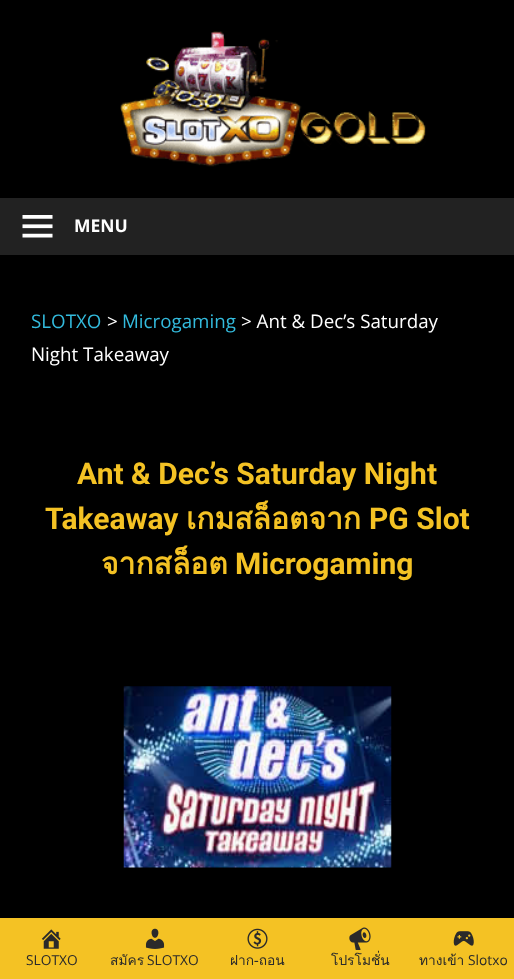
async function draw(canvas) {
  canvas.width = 514
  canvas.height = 979
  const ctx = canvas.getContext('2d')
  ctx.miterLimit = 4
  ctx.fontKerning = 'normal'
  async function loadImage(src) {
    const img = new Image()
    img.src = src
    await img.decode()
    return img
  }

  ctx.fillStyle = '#000'
  ctx.fillRect(0, 0, 514, 979)
  ctx.drawImage(await loadImage('image0.png'), 120, 31, 306, 136)
  ctx.fillStyle = '#222'
  ctx.fillRect(0, 198, 514, 57)
  ctx.drawImage(await loadImage('image1.png'), 22, 215, 31, 23)
  ctx.font = 'bold 17.5px Open Sans'
  ctx.fillStyle = '#fff'
  ctx.fillText('MENU', 74, 232)
  ctx.font = '18.75px Open Sans'
  ctx.fillStyle = '#3bd'
  ctx.fillText('SLOTXO', 31, 328)
  ctx.fillStyle = '#fff'
  ctx.fillText('>', 107, 328)
  ctx.fillStyle = '#3bd'
  ctx.fillText('Microgaming', 122, 328)
  ctx.fillStyle = '#fff'
  ctx.fillText('> Ant & Dec’s Saturday', 241, 328)
  ctx.fillText('Night Takeaway', 31, 361)
  ctx.font = 'bold 30px Roboto'
  ctx.fillStyle = '#f4c224'
  ctx.fillText('Ant & Dec’s Saturday Night', 77, 484)
  ctx.fillText('Takeaway', 45, 529)
  ctx.font = 'bold 30px Loma'
  ctx.fillText('เกมสล็อตจาก', 186, 529)
  ctx.font = 'bold 30px Roboto'
  ctx.fillText('PG Slot', 369, 529)
  ctx.font = 'bold 30px Loma'
  ctx.fillText('จากสล็อต', 101, 574)
  ctx.font = 'bold 30px Roboto'
  ctx.fillText('Microgaming', 235, 574)
  ctx.drawImage(await loadImage('image2.png'), 123, 686, 269, 182)
  ctx.fillRect(0, 918, 514, 61)
  ctx.drawImage(await loadImage('image3.png'), 41, 929, 20, 20)
  ctx.font = '13.75px Open Sans'
  ctx.fillStyle = '#2a2a2a'
  ctx.fillText('SLOTXO', 26, 965)
  ctx.drawImage(await loadImage('image4.png'), 145, 928, 20, 21)
  ctx.font = '13.75px Loma'
  ctx.fillText('สมัคร', 110, 965)
  ctx.font = '13.75px Open Sans'
  ctx.fillText('SLOTXO', 147, 965)
  ctx.drawImage(await loadImage('image5.png'), 247, 928, 21, 21)
  ctx.font = '13.75px Loma'
  ctx.fillText('ฝาก-ถอน', 230, 965)
  ctx.drawImage(await loadImage('image6.png'), 349, 927, 22, 23)
  ctx.fillText('โปรโมชั่น', 331, 965)
  ctx.drawImage(await loadImage('image7.png'), 453, 931, 21, 15)
  ctx.fillText('ทางเข้า', 419, 965)
  ctx.font = '13.75px Open Sans'
  ctx.fillText('Slotxo', 468, 965)
}

draw(document.querySelector('canvas'))
